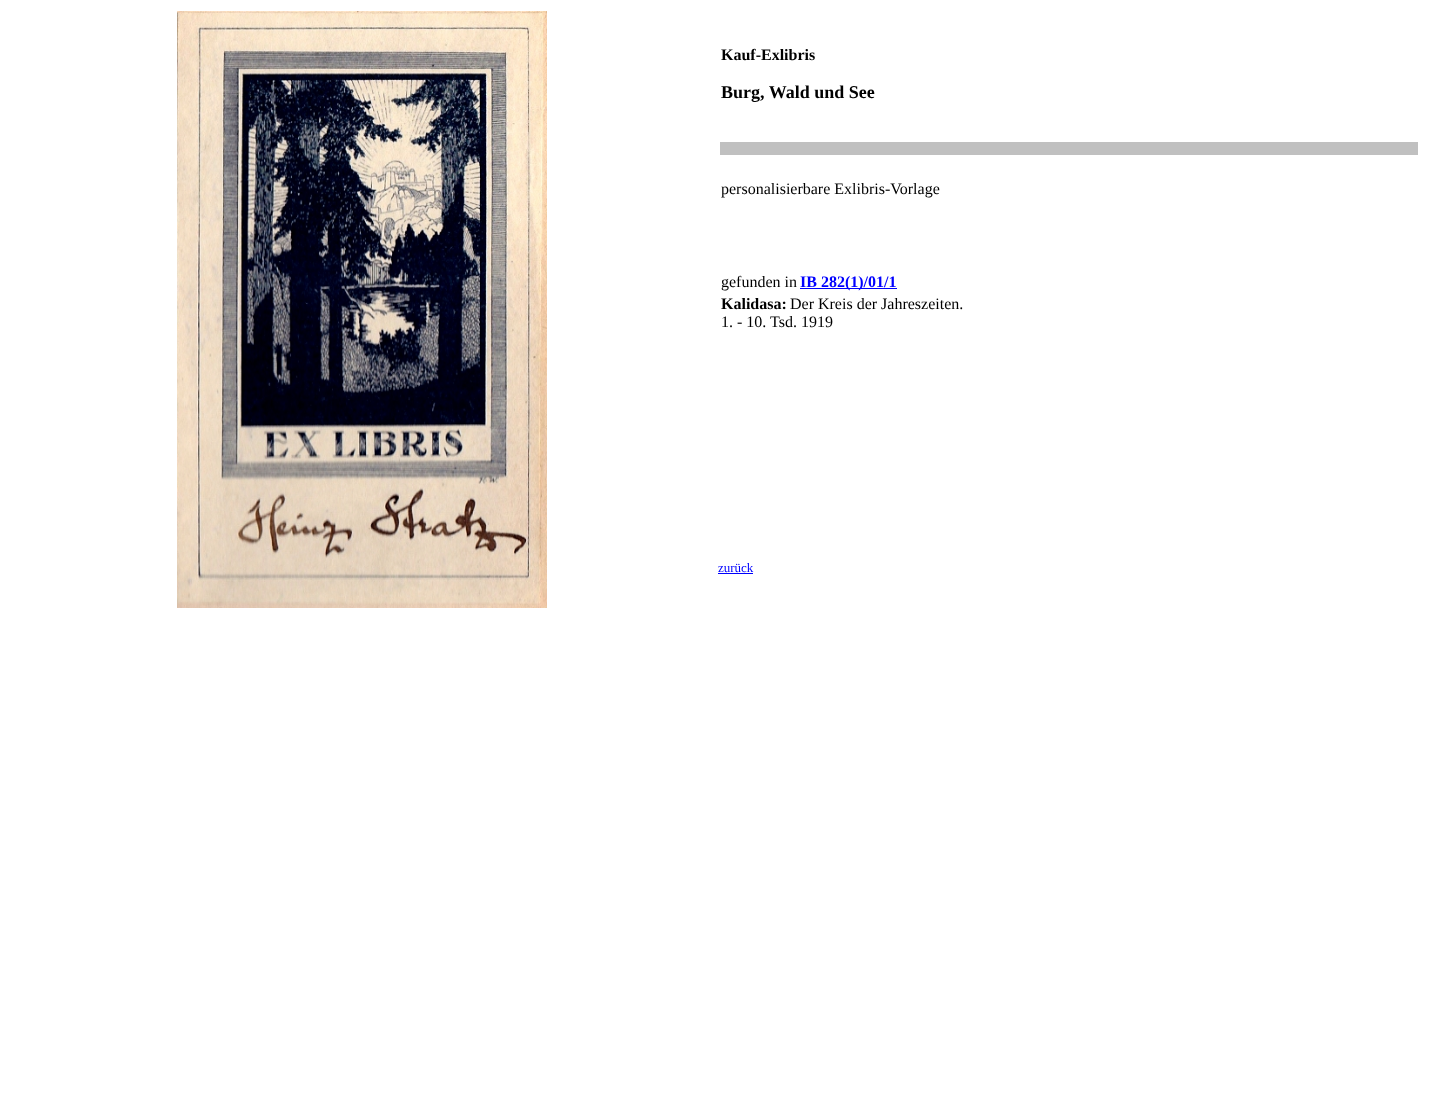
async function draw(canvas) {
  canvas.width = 1431
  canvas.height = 1104
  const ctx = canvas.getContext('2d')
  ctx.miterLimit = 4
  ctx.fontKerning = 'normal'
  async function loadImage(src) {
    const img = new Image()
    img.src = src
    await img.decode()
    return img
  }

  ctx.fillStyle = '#fff'
  ctx.fillRect(0, 0, 1431, 1104)
  ctx.drawImage(await loadImage('image0.png'), 177, 11, 370, 597)
  ctx.font = 'bold 16px Liberation Serif'
  ctx.fillStyle = '#000'
  ctx.fillText('Kauf-Exlibris', 721, 60)
  ctx.font = 'bold 18px Liberation Serif'
  ctx.fillText('Burg, Wald und See', 721, 98)
  ctx.fillStyle = '#c0c0c0'
  ctx.fillRect(720, 142, 698, 13)
  ctx.font = '16px Liberation Serif'
  ctx.fillStyle = '#000'
  ctx.fillText('personalisierbare Exlibris-Vorlage', 721, 194)
  ctx.fillText('gefunden in', 721, 287)
  ctx.fillStyle = '#00f'
  ctx.fillRect(800, 288, 97, 1)
  ctx.font = 'bold 16px Liberation Serif'
  ctx.fillText('IB 282(1)/01/1', 800, 287)
  ctx.fillStyle = '#000'
  ctx.fillText('Kalidasa:', 721, 309)
  ctx.font = '16px Liberation Serif'
  ctx.fillText('Der Kreis der Jahreszeiten.', 790, 309)
  ctx.fillText('1. - 10. Tsd. 1919', 721, 327)
  ctx.font = '13px Liberation Serif'
  ctx.fillStyle = '#00f'
  ctx.fillText('zurück', 718, 572)
  ctx.fillRect(718, 573, 35, 1)
}

draw(document.querySelector('canvas'))
